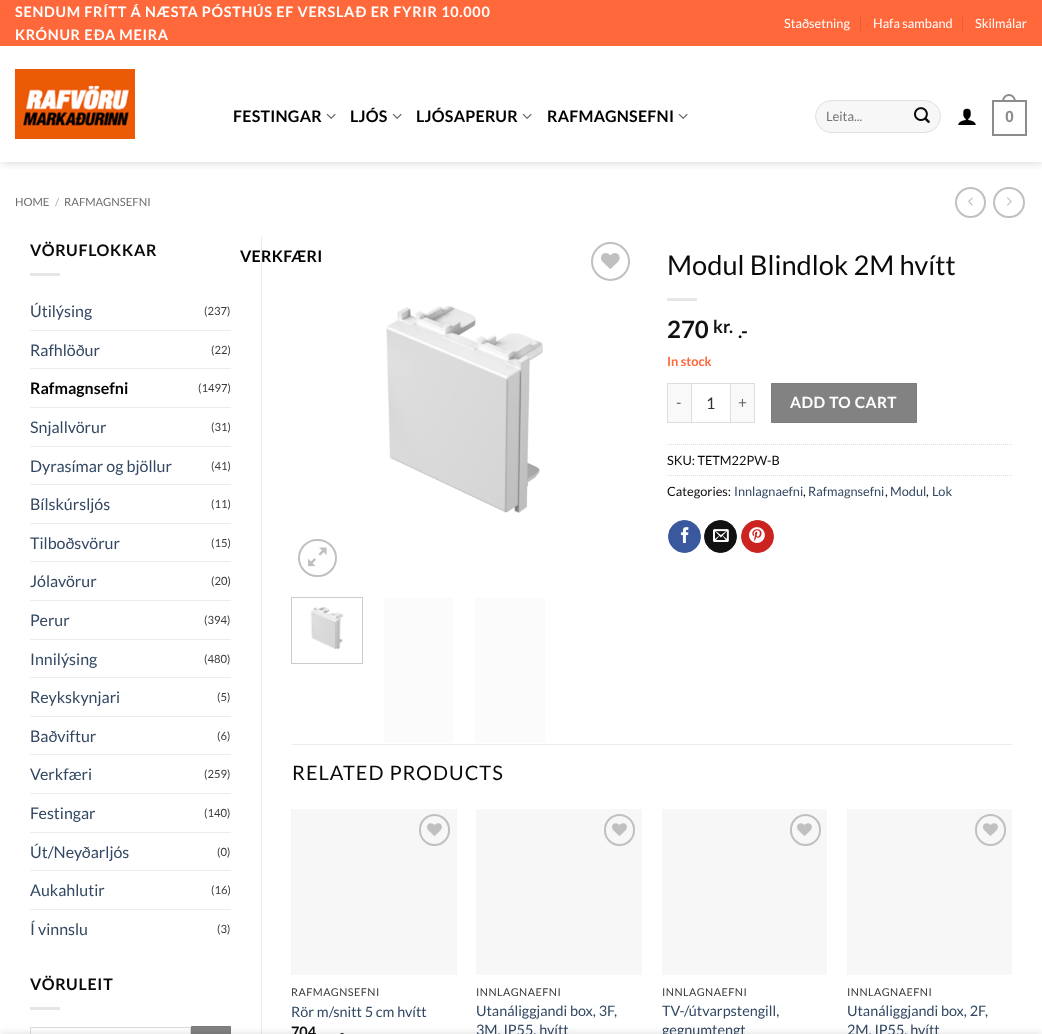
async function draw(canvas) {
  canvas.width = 1042
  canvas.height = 1034
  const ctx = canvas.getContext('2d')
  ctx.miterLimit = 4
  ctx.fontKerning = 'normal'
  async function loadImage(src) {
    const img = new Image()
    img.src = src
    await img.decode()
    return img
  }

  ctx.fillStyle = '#fff'
  ctx.fillRect(0, 0, 1042, 1034)
  ctx.save()
  ctx.beginPath()
  ctx.rect(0, 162, 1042, 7)
  ctx.clip()
  ctx.fillStyle = '#00000026'
  ctx.filter = 'blur(5px)'
  ctx.beginPath()
  ctx.rect(1, 1, 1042, 162)
  ctx.fill()
  ctx.filter = 'none'
  ctx.restore()
  ctx.fillStyle = '#ff683a'
  ctx.fillRect(0, 0, 1042, 46)
  ctx.letterSpacing = '0.72px'
  ctx.font = 'bold 14.4px Lato'
  ctx.fillStyle = '#fff'
  ctx.fillText('SENDUM FRÍTT Á NÆSTA PÓSTHÚS EF VERSLAÐ ER FYRIR 10.000', 15, 17)
  ctx.fillText('KRÓNUR EÐA MEIRA', 15, 40)
  ctx.letterSpacing = '0px'
  ctx.font = '12.75px Lato'
  ctx.fillText('Staðsetning', 784, 28)
  ctx.fillStyle = '#e65e34'
  ctx.fillRect(860, 16, 1, 15)
  ctx.fillStyle = '#fff'
  ctx.fillText('Hafa samband', 873, 28)
  ctx.fillStyle = '#e65e34'
  ctx.fillRect(962, 16, 1, 15)
  ctx.fillStyle = '#fff'
  ctx.fillText('Skilmálar', 975, 28)
  ctx.drawImage(await loadImage('image0.png'), 15, 69, 120, 70)
  ctx.letterSpacing = '0.25px'
  ctx.font = 'bold 16px Lato'
  ctx.fillStyle = '#000'
  ctx.fillText('FESTINGAR', 233, 122)
  ctx.drawImage(await loadImage('image1.png'), 326, 113, 10, 6)
  ctx.fillText('LJÓS', 350, 122)
  ctx.drawImage(await loadImage('image1.png'), 392, 113, 10, 6)
  ctx.fillText('LJÓSAPERUR', 416, 122)
  ctx.drawImage(await loadImage('image1.png'), 522, 113, 10, 6)
  ctx.fillText('RAFMAGNSEFNI', 547, 122)
  ctx.drawImage(await loadImage('image1.png'), 678, 113, 10, 6)
  ctx.fillStyle = '#ececec'
  ctx.fillRect(261, 237, 1, 797)
  ctx.fillStyle = '#000'
  ctx.fillText('VERKFÆRI', 240, 262)
  ctx.fillStyle = '#f7f7f7'
  ctx.beginPath()
  ctx.roundRect(815, 100, 126, 33, 16.5)
  ctx.fill()
  ctx.beginPath()
  ctx.roundRect(815.5, 100.5, 125, 32, 16)
  ctx.strokeStyle = '#00000017'
  ctx.stroke()
  ctx.letterSpacing = '0px'
  ctx.font = '13px Lato'
  ctx.fillStyle = '#757575'
  ctx.fillText('Leita...', 826, 121)
  ctx.drawImage(await loadImage('image2.png'), 914, 107, 16, 16)
  ctx.drawImage(await loadImage('image3.png'), 958, 108, 18, 17)
  ctx.strokeStyle = '#8c8c8c'
  ctx.lineWidth = 2
  ctx.strokeRect(993, 101, 33, 34)
  ctx.fillStyle = '#8c8c8c'
  ctx.beginPath()
  ctx.moveTo(1009, 94)
  ctx.bezierCurveTo(1013.5, 94, 1016, 98, 1016, 102)
  ctx.lineTo(1002, 102)
  ctx.bezierCurveTo(1002, 98, 1004.5, 94, 1009, 94)
  ctx.closePath()
  ctx.moveTo(1009, 96)
  ctx.bezierCurveTo(1012.5, 96, 1014, 99, 1014, 102)
  ctx.lineTo(1004, 102)
  ctx.bezierCurveTo(1004, 99, 1005.5, 96, 1009, 96)
  ctx.closePath()
  ctx.fill('evenodd')
  ctx.letterSpacing = '0.25px'
  ctx.font = 'bold 16px Liberation Sans'
  ctx.fillText('0', 1005, 122)
  ctx.letterSpacing = '0px'
  ctx.font = '11.25px Lato'
  ctx.fillStyle = '#6e6e6e'
  ctx.fillText('HOME', 15, 206)
  ctx.fillStyle = '#b2b2b2'
  ctx.fillText('/', 55, 206)
  ctx.fillStyle = '#6e6e6e'
  ctx.fillText('RAFMAGNSEFNI', 64, 206)
  ctx.beginPath()
  ctx.arc(970.5, 202.5, 14.5, 0, 2 * Math.PI)
  ctx.strokeStyle = '#c0c0c0'
  ctx.stroke()
  ctx.drawImage(await loadImage('image4.png'), 968, 197, 5, 9)
  ctx.beginPath()
  ctx.roundRect(994, 188, 30, 29, 14.5)
  ctx.stroke()
  ctx.drawImage(await loadImage('image5.png'), 1007, 197, 5, 9)
  ctx.letterSpacing = '0.75px'
  ctx.font = 'bold 16px Lato'
  ctx.fillStyle = '#0a0a0a'
  ctx.fillText('VÖRUFLOKKAR', 30, 256)
  ctx.fillStyle = '#e6e6e6'
  ctx.fillRect(30, 273, 30, 3)
  ctx.letterSpacing = '0px'
  ctx.font = '16px Lato'
  ctx.fillStyle = '#334862'
  ctx.fillText('Útilýsing', 30, 317)
  ctx.font = '11.25px Lato'
  ctx.fillStyle = '#3b3b3b'
  ctx.fillText('(237)', 204, 315)
  ctx.fillStyle = '#ececec'
  ctx.fillRect(30, 330, 201, 1)
  ctx.font = '16px Lato'
  ctx.fillStyle = '#334862'
  ctx.fillText('Rafhlöður', 30, 356)
  ctx.font = '11.25px Lato'
  ctx.fillStyle = '#3b3b3b'
  ctx.fillText('(22)', 211, 354)
  ctx.fillStyle = '#ececec'
  ctx.fillRect(30, 368, 201, 1)
  ctx.font = 'bold 16px Lato'
  ctx.fillStyle = '#000'
  ctx.fillText('Rafmagnsefni', 30, 394)
  ctx.font = '11.25px Lato'
  ctx.fillStyle = '#3b3b3b'
  ctx.fillText('(1497)', 198, 392)
  ctx.fillStyle = '#ececec'
  ctx.fillRect(30, 407, 201, 1)
  ctx.font = '16px Lato'
  ctx.fillStyle = '#334862'
  ctx.fillText('Snjallvörur', 30, 433)
  ctx.font = '11.25px Lato'
  ctx.fillStyle = '#3b3b3b'
  ctx.fillText('(31)', 211, 431)
  ctx.fillStyle = '#ececec'
  ctx.fillRect(30, 446, 201, 1)
  ctx.font = '16px Lato'
  ctx.fillStyle = '#334862'
  ctx.fillText('Dyrasímar og bjöllur', 30, 472)
  ctx.font = '11.25px Lato'
  ctx.fillStyle = '#3b3b3b'
  ctx.fillText('(41)', 211, 470)
  ctx.fillStyle = '#ececec'
  ctx.fillRect(30, 484, 201, 1)
  ctx.font = '16px Lato'
  ctx.fillStyle = '#334862'
  ctx.fillText('Bílskúrsljós', 30, 510)
  ctx.font = '11.25px Lato'
  ctx.fillStyle = '#3b3b3b'
  ctx.fillText('(11)', 211, 508)
  ctx.fillStyle = '#ececec'
  ctx.fillRect(30, 523, 201, 1)
  ctx.font = '16px Lato'
  ctx.fillStyle = '#334862'
  ctx.fillText('Tilboðsvörur', 30, 549)
  ctx.font = '11.25px Lato'
  ctx.fillStyle = '#3b3b3b'
  ctx.fillText('(15)', 211, 547)
  ctx.fillStyle = '#ececec'
  ctx.fillRect(30, 561, 201, 1)
  ctx.font = '16px Lato'
  ctx.fillStyle = '#334862'
  ctx.fillText('Jólavörur', 30, 587)
  ctx.font = '11.25px Lato'
  ctx.fillStyle = '#3b3b3b'
  ctx.fillText('(20)', 211, 585)
  ctx.fillStyle = '#ececec'
  ctx.fillRect(30, 600, 201, 1)
  ctx.font = '16px Lato'
  ctx.fillStyle = '#334862'
  ctx.fillText('Perur', 30, 626)
  ctx.font = '11.25px Lato'
  ctx.fillStyle = '#3b3b3b'
  ctx.fillText('(394)', 204, 624)
  ctx.fillStyle = '#ececec'
  ctx.fillRect(30, 639, 201, 1)
  ctx.font = '16px Lato'
  ctx.fillStyle = '#334862'
  ctx.fillText('Innilýsing', 30, 665)
  ctx.font = '11.25px Lato'
  ctx.fillStyle = '#3b3b3b'
  ctx.fillText('(480)', 204, 663)
  ctx.fillStyle = '#ececec'
  ctx.fillRect(30, 677, 201, 1)
  ctx.font = '16px Lato'
  ctx.fillStyle = '#334862'
  ctx.fillText('Reykskynjari', 30, 703)
  ctx.font = '11.25px Lato'
  ctx.fillStyle = '#3b3b3b'
  ctx.fillText('(5)', 217, 701)
  ctx.fillStyle = '#ececec'
  ctx.fillRect(30, 716, 201, 1)
  ctx.font = '16px Lato'
  ctx.fillStyle = '#334862'
  ctx.fillText('Baðviftur', 30, 742)
  ctx.font = '11.25px Lato'
  ctx.fillStyle = '#3b3b3b'
  ctx.fillText('(6)', 217, 740)
  ctx.fillStyle = '#ececec'
  ctx.fillRect(30, 754, 201, 1)
  ctx.font = '16px Lato'
  ctx.fillStyle = '#334862'
  ctx.fillText('Verkfæri', 30, 780)
  ctx.font = '11.25px Lato'
  ctx.fillStyle = '#3b3b3b'
  ctx.fillText('(259)', 204, 778)
  ctx.fillStyle = '#ececec'
  ctx.fillRect(30, 793, 201, 1)
  ctx.font = '16px Lato'
  ctx.fillStyle = '#334862'
  ctx.fillText('Festingar', 30, 819)
  ctx.font = '11.25px Lato'
  ctx.fillStyle = '#3b3b3b'
  ctx.fillText('(140)', 204, 817)
  ctx.fillStyle = '#ececec'
  ctx.fillRect(30, 832, 201, 1)
  ctx.font = '16px Lato'
  ctx.fillStyle = '#334862'
  ctx.fillText('Út/Neyðarljós', 30, 858)
  ctx.font = '11.25px Lato'
  ctx.fillStyle = '#3b3b3b'
  ctx.fillText('(0)', 217, 856)
  ctx.fillStyle = '#ececec'
  ctx.fillRect(30, 870, 201, 1)
  ctx.font = '16px Lato'
  ctx.fillStyle = '#334862'
  ctx.fillText('Aukahlutir', 30, 896)
  ctx.font = '11.25px Lato'
  ctx.fillStyle = '#3b3b3b'
  ctx.fillText('(16)', 211, 894)
  ctx.fillStyle = '#ececec'
  ctx.fillRect(30, 909, 201, 1)
  ctx.font = '16px Lato'
  ctx.fillStyle = '#334862'
  ctx.fillText('Í vinnslu', 30, 935)
  ctx.font = '11.25px Lato'
  ctx.fillStyle = '#3b3b3b'
  ctx.fillText('(3)', 217, 933)
  ctx.letterSpacing = '0.75px'
  ctx.font = 'bold 16px Lato'
  ctx.fillStyle = '#0a0a0a'
  ctx.fillText('VÖRULEIT', 30, 990)
  ctx.fillStyle = '#e6e6e6'
  ctx.fillRect(30, 1007, 30, 3)
  ctx.strokeStyle = '#ddd'
  ctx.lineWidth = 1
  ctx.strokeRect(30.5, 1027.5, 160, 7)
  ctx.fillStyle = '#828282'
  ctx.beginPath()
  ctx.rect(191.5, 1026.5, 39, 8)
  ctx.fill()
  ctx.strokeStyle = '#7c7c7c'
  ctx.stroke()
  ctx.beginPath()
  ctx.arc(610.5, 261.5, 18.5, 0, 2 * Math.PI)
  ctx.strokeStyle = '#c0c0c0'
  ctx.lineWidth = 2
  ctx.stroke()
  ctx.drawImage(await loadImage('image6.png'), 601, 253, 19, 16)
  ctx.drawImage(await loadImage('image7.png'), 386, 306, 157, 207)
  ctx.beginPath()
  ctx.roundRect(299, 540, 37, 36, 18)
  ctx.stroke()
  ctx.drawImage(await loadImage('image8.png'), 308, 547, 19, 20)
  ctx.strokeStyle = '#ccc'
  ctx.lineWidth = 1
  ctx.strokeRect(291.5, 597.5, 71, 66)
  ctx.drawImage(await loadImage('image9.png'), 310, 607, 34, 42)
  ctx.fillStyle = '#fbfbfb'
  ctx.fillRect(384, 598, 69, 145)
  ctx.fillRect(475, 598, 70, 145)
  ctx.letterSpacing = '0px'
  ctx.font = '27.25px Lato'
  ctx.fillStyle = '#0a0a0a'
  ctx.fillText('Modul Blindlok 2M hvítt', 667, 275)
  ctx.fillStyle = '#e6e6e6'
  ctx.fillRect(667, 298, 30, 3)
  ctx.font = 'bold 24px Lato'
  ctx.fillStyle = '#111'
  ctx.fillText('270', 667, 338)
  ctx.font = 'bold 18px Lato'
  ctx.fillText('kr.', 713, 333)
  ctx.font = 'bold 19px Lato'
  ctx.fillStyle = '#0a0a0a'
  ctx.fillText('.-', 738, 338)
  ctx.font = 'bold 12.75px Lato'
  ctx.fillStyle = '#ff683a'
  ctx.fillText('In stock', 667, 366)
  ctx.fillStyle = '#f9f9f9'
  ctx.fillRect(668, 384, 23, 38)
  ctx.fillStyle = '#ddd'
  ctx.fillRect(667, 383, 24, 1)
  ctx.fillRect(667, 422, 24, 1)
  ctx.fillRect(667, 383, 1, 40)
  ctx.letterSpacing = '0.5px'
  ctx.font = '15.5px Lato'
  ctx.fillStyle = '#666'
  ctx.fillText('-', 676, 408)
  ctx.strokeStyle = '#ddd'
  ctx.strokeRect(691.5, 383.5, 39, 39)
  ctx.letterSpacing = '0px'
  ctx.font = '16px Lato'
  ctx.fillStyle = '#333'
  ctx.fillText('1', 706, 409)
  ctx.fillStyle = '#f9f9f9'
  ctx.fillRect(731, 384, 23, 38)
  ctx.fillStyle = '#ddd'
  ctx.fillRect(731, 383, 24, 1)
  ctx.fillRect(754, 383, 1, 40)
  ctx.fillRect(731, 422, 24, 1)
  ctx.letterSpacing = '0.5px'
  ctx.font = '15.5px Lato'
  ctx.fillStyle = '#666'
  ctx.fillText('+', 738, 408)
  ctx.fillStyle = '#828282'
  ctx.beginPath()
  ctx.rect(771.5, 383.5, 145, 39)
  ctx.fill()
  ctx.strokeStyle = '#7c7c7c'
  ctx.stroke()
  ctx.font = 'bold 15.5px Lato'
  ctx.fillStyle = '#fff'
  ctx.fillText('ADD TO CART', 790, 408)
  ctx.beginPath()
  ctx.moveTo(667, 444.5)
  ctx.lineTo(1012, 444.5)
  ctx.strokeStyle = '#ddd'
  ctx.setLineDash([1, 1])
  ctx.stroke()
  ctx.letterSpacing = '0px'
  ctx.font = '12.75px Lato'
  ctx.fillStyle = '#0a0a0a'
  ctx.fillText('SKU: TETM22PW-B', 667, 465)
  ctx.beginPath()
  ctx.moveTo(667, 475.5)
  ctx.lineTo(1012, 475.5)
  ctx.stroke()
  ctx.fillText('Categories:', 667, 496)
  ctx.fillStyle = '#334862'
  ctx.fillText('Innlagnaefni', 734, 496)
  ctx.fillStyle = '#0a0a0a'
  ctx.fillText(',', 803, 496)
  ctx.fillStyle = '#334862'
  ctx.fillText('Rafmagnsefni', 808, 496)
  ctx.fillStyle = '#0a0a0a'
  ctx.fillText(',', 885, 496)
  ctx.fillStyle = '#334862'
  ctx.fillText('Modul', 890, 496)
  ctx.fillStyle = '#0a0a0a'
  ctx.fillText(',', 926, 496)
  ctx.fillStyle = '#334862'
  ctx.fillText('Lok', 932, 496)
  ctx.fillStyle = '#3a589d'
  ctx.beginPath()
  ctx.arc(684.5, 536.5, 16, 0, 2 * Math.PI)
  ctx.fill()
  ctx.strokeStyle = '#3a589d'
  ctx.setLineDash([])
  ctx.stroke()
  ctx.drawImage(await loadImage('image10.png'), 680, 527, 9, 16)
  ctx.fillStyle = '#111'
  ctx.beginPath()
  ctx.arc(720.5, 536.5, 16, 0, 2 * Math.PI)
  ctx.fill()
  ctx.strokeStyle = '#111'
  ctx.stroke()
  ctx.drawImage(await loadImage('image11.png'), 713, 529, 16, 13)
  ctx.fillStyle = '#cb2320'
  ctx.beginPath()
  ctx.arc(757.5, 536.5, 16, 0, 2 * Math.PI)
  ctx.fill()
  ctx.strokeStyle = '#cb2320'
  ctx.stroke()
  ctx.drawImage(await loadImage('image12.png'), 749, 527, 16, 16)
  ctx.fillStyle = '#ececec'
  ctx.fillRect(292, 744, 720, 1)
  ctx.letterSpacing = '1px'
  ctx.font = '20px Lato'
  ctx.fillStyle = '#0a0a0a'
  ctx.fillText('RELATED PRODUCTS', 292, 780)
  ctx.fillStyle = '#f7f7f7'
  ctx.fillRect(291, 809, 166, 166)
  ctx.beginPath()
  ctx.roundRect(420, 815, 29, 30, 14.5)
  ctx.strokeStyle = '#c0c0c0'
  ctx.lineWidth = 2
  ctx.stroke()
  ctx.drawImage(await loadImage('image13.png'), 427, 823, 15, 13)
  ctx.letterSpacing = '0.5px'
  ctx.font = '10.75px Lato'
  ctx.fillStyle = '#3b3b3b'
  ctx.fillText('RAFMAGNSEFNI', 291, 996)
  ctx.letterSpacing = '0px'
  ctx.font = '14.4px Lato'
  ctx.fillStyle = '#334862'
  ctx.fillText('Rör m/snitt 5 cm hvítt', 291, 1017)
  ctx.font = 'bold 14.4px Lato'
  ctx.fillStyle = '#111'
  ctx.fillText('704', 291, 1037)
  ctx.font = '12px Lato'
  ctx.fillStyle = '#0a0a0a'
  ctx.fillText('-', 340, 1037)
  ctx.fillStyle = '#f7f7f7'
  ctx.fillRect(476, 809, 166, 166)
  ctx.beginPath()
  ctx.roundRect(605, 815, 29, 30, 14.5)
  ctx.stroke()
  ctx.drawImage(await loadImage('image13.png'), 612, 823, 15, 13)
  ctx.letterSpacing = '0.5px'
  ctx.font = '10.75px Lato'
  ctx.fillStyle = '#3b3b3b'
  ctx.fillText('INNLAGNAEFNI', 476, 996)
  ctx.letterSpacing = '0px'
  ctx.font = '14.4px Lato'
  ctx.fillStyle = '#334862'
  ctx.fillText('Utanáliggjandi box, 3F,', 476, 1016)
  ctx.fillText('3M, IP55, hvítt', 476, 1035)
  ctx.fillStyle = '#f7f7f7'
  ctx.fillRect(662, 809, 165, 166)
  ctx.beginPath()
  ctx.roundRect(791, 815, 29, 30, 14.5)
  ctx.stroke()
  ctx.drawImage(await loadImage('image13.png'), 797, 823, 15, 13)
  ctx.letterSpacing = '0.5px'
  ctx.font = '10.75px Lato'
  ctx.fillStyle = '#3b3b3b'
  ctx.fillText('INNLAGNAEFNI', 662, 996)
  ctx.letterSpacing = '0px'
  ctx.font = '14.4px Lato'
  ctx.fillStyle = '#334862'
  ctx.fillText('TV-/útvarpstengill,', 662, 1016)
  ctx.fillText('gegnumtengt', 662, 1035)
  ctx.fillStyle = '#f7f7f7'
  ctx.fillRect(847, 809, 165, 166)
  ctx.beginPath()
  ctx.roundRect(976, 815, 29, 30, 14.5)
  ctx.stroke()
  ctx.drawImage(await loadImage('image13.png'), 983, 823, 15, 13)
  ctx.letterSpacing = '0.5px'
  ctx.font = '10.75px Lato'
  ctx.fillStyle = '#3b3b3b'
  ctx.fillText('INNLAGNAEFNI', 847, 996)
  ctx.letterSpacing = '0px'
  ctx.font = '14.4px Lato'
  ctx.fillStyle = '#334862'
  ctx.fillText('Utanáliggjandi box, 2F,', 847, 1016)
  ctx.fillText('2M, IP55, hvítt', 847, 1035)
  ctx.fillStyle = '#00000024'
  ctx.filter = 'blur(4.5px)'
  ctx.beginPath()
  ctx.rect(0, 1034, 1042, 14)
  ctx.fill()
  ctx.filter = 'none'
}

draw(document.querySelector('canvas'))
